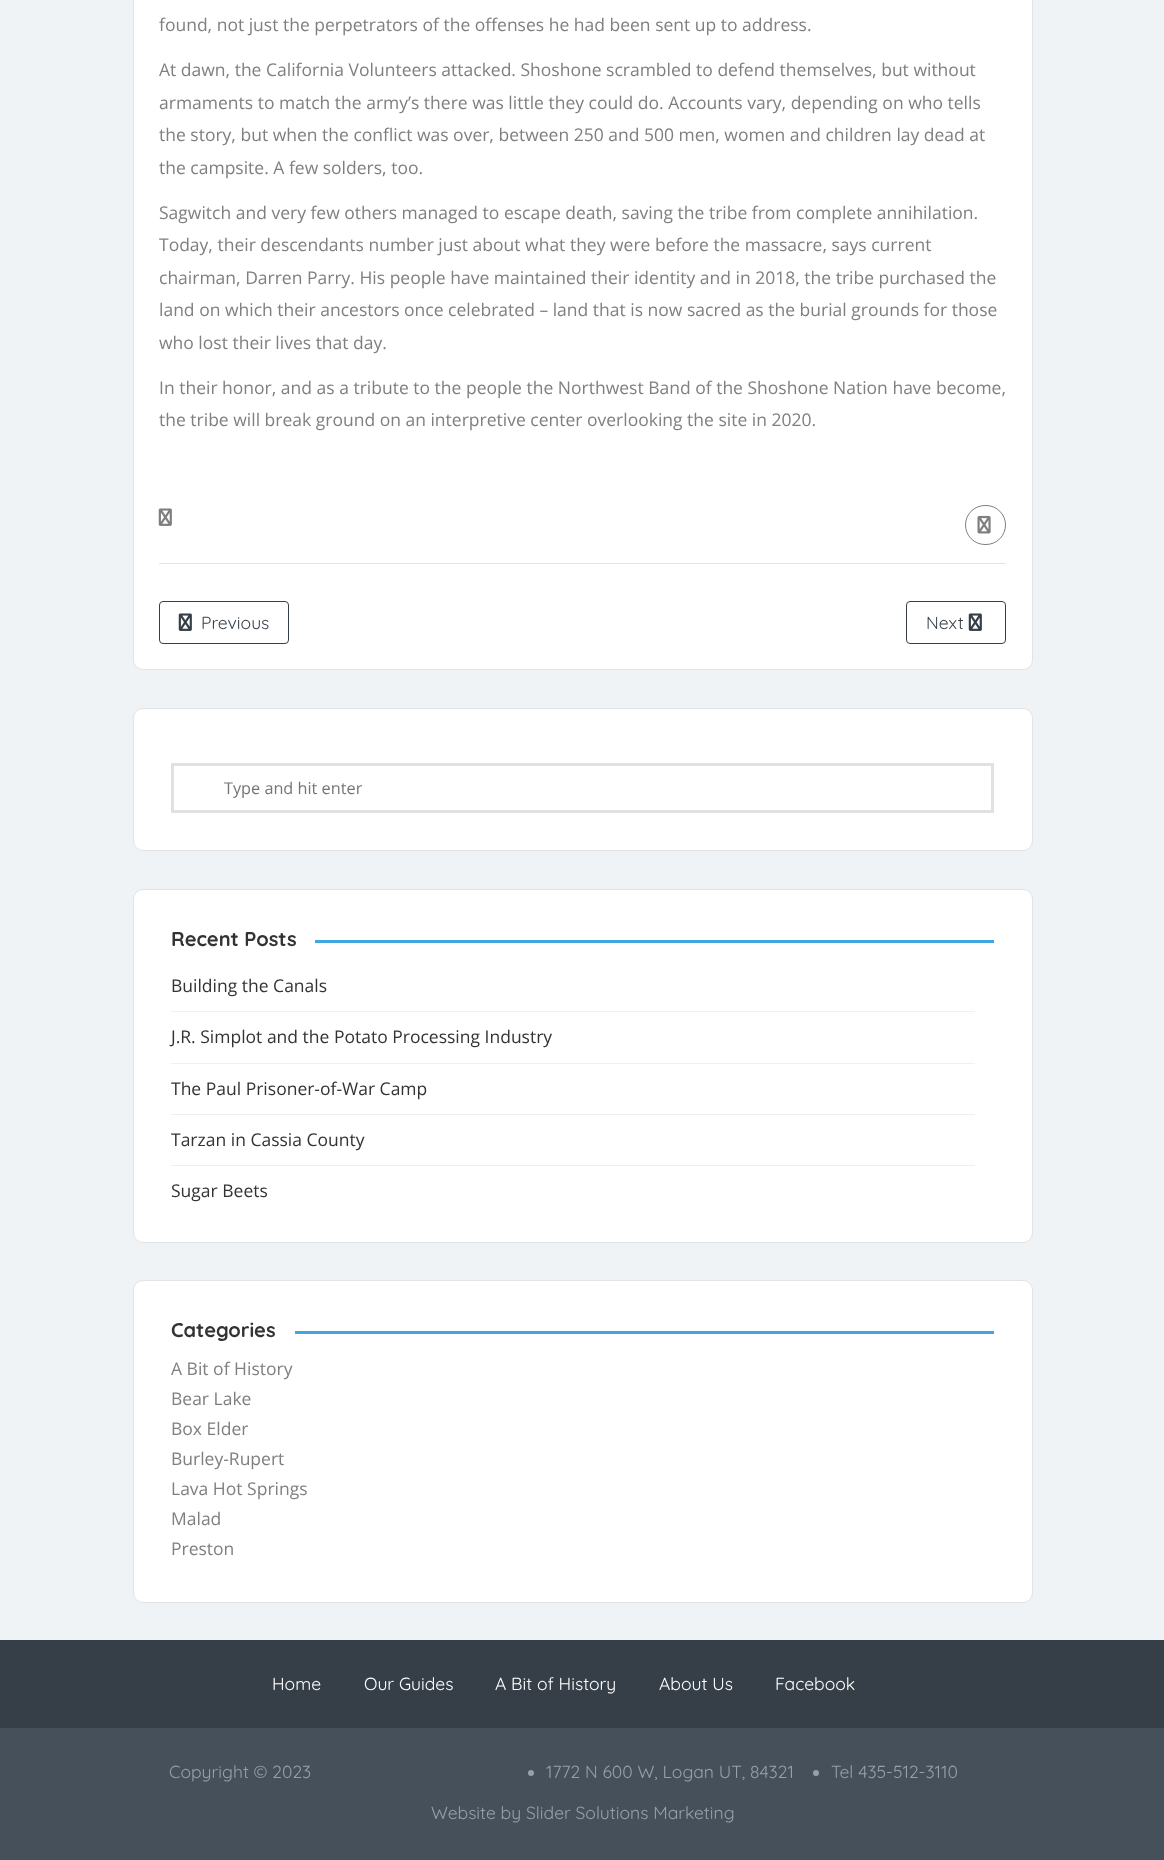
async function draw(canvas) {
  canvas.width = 1164
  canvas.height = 1860
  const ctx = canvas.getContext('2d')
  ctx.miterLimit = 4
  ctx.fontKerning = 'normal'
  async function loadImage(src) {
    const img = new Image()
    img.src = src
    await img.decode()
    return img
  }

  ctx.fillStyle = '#363f48'
  ctx.fillRect(0, 0, 1164, 1860)
  ctx.fillStyle = '#eff3f6'
  ctx.fillRect(0, 0, 1164, 1640)
  ctx.fillStyle = '#fff'
  ctx.beginPath()
  ctx.roundRect(133.5, -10.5, 899, 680, 9.5)
  ctx.fill()
  ctx.strokeStyle = '#e3e3e3'
  ctx.stroke()
  ctx.font = '17.5px Open Sans'
  ctx.fillStyle = '#7f7f7f'
  ctx.fillText('found, not just the perpetrators of the offenses he had been sent up to address.', 159, 31)
  ctx.fillText('At dawn, the California Volunteers attacked. Shoshone scrambled to defend themselves, but without', 159, 76)
  ctx.fillText('armaments to match the army’s there was little they could do. Accounts vary, depending on who tells', 159, 109)
  ctx.fillText('the story, but when the conflict was over, between 250 and 500 men, women and children lay dead at', 159, 141)
  ctx.fillText('the campsite. A few solders, too.', 159, 174)
  ctx.fillText('Sagwitch and very few others managed to escape death, saving the tribe from complete annihilation.', 159, 219)
  ctx.fillText('Today, their descendants number just about what they were before the massacre, says current', 159, 251)
  ctx.fillText('chairman, Darren Parry. His people have maintained their identity and in 2018, the tribe purchased the', 159, 284)
  ctx.fillText('land on which their ancestors once celebrated – land that is now sacred as the burial grounds for those', 159, 316)
  ctx.fillText('who lost their lives that day.', 159, 349)
  ctx.fillText('In their honor, and as a tribute to the people the Northwest Band of the Shoshone Nation have become,', 159, 394)
  ctx.fillText('the tribe will break ground on an interpretive center overlooking the site in 2020.', 159, 426)
  ctx.fillStyle = '#e3e3e3'
  ctx.fillRect(159, 563, 847, 1)
  ctx.drawImage(await loadImage('image0.png'), 158, 508, 14, 18)
  ctx.beginPath()
  ctx.roundRect(965.5, 505.5, 40, 39, 19.5)
  ctx.strokeStyle = '#7f7f7f'
  ctx.stroke()
  ctx.drawImage(await loadImage('image1.png'), 977, 515, 14, 19)
  ctx.beginPath()
  ctx.roundRect(159.5, 601.5, 129, 42, 3.5)
  ctx.strokeStyle = '#363f48'
  ctx.stroke()
  ctx.drawImage(await loadImage('image2.png'), 178, 613, 14, 18)
  ctx.font = '17.5px Quicksand'
  ctx.fillStyle = '#363f48'
  ctx.fillText('Previous', 201, 629)
  ctx.beginPath()
  ctx.roundRect(906.5, 601.5, 99, 42, 3.5)
  ctx.stroke()
  ctx.fillText('Next', 926, 629)
  ctx.drawImage(await loadImage('image2.png'), 968, 613, 14, 18)
  ctx.fillStyle = '#fff'
  ctx.beginPath()
  ctx.roundRect(133.5, 708.5, 899, 142, 9.5)
  ctx.fill()
  ctx.strokeStyle = '#e3e3e3'
  ctx.stroke()
  ctx.strokeStyle = '#e1e1e1'
  ctx.lineWidth = 3
  ctx.strokeRect(172.5, 764.5, 820, 47)
  ctx.font = '16.25px Open Sans'
  ctx.fillStyle = '#757575'
  ctx.fillText('Type and hit enter', 224, 794)
  ctx.fillStyle = '#fff'
  ctx.beginPath()
  ctx.roundRect(133.5, 889.5, 899, 353, 9.5)
  ctx.fill()
  ctx.strokeStyle = '#e3e3e3'
  ctx.lineWidth = 1
  ctx.stroke()
  ctx.font = 'bold 20px Quicksand'
  ctx.fillStyle = '#333'
  ctx.fillText('Recent Posts', 171, 946)
  ctx.fillStyle = '#41a6df'
  ctx.fillRect(315, 940, 679, 3)
  ctx.fillStyle = '#f0f0f0'
  ctx.fillRect(171, 1011, 804, 1)
  ctx.font = '17.5px Open Sans'
  ctx.fillStyle = '#333'
  ctx.fillText('Building the Canals', 171, 992)
  ctx.fillStyle = '#f0f0f0'
  ctx.fillRect(171, 1063, 804, 1)
  ctx.fillStyle = '#333'
  ctx.fillText('J.R. Simplot and the Potato Processing Industry', 171, 1043)
  ctx.fillStyle = '#f0f0f0'
  ctx.fillRect(171, 1114, 804, 1)
  ctx.fillStyle = '#333'
  ctx.fillText('The Paul Prisoner-of-War Camp', 171, 1095)
  ctx.fillStyle = '#f0f0f0'
  ctx.fillRect(171, 1165, 804, 1)
  ctx.fillStyle = '#333'
  ctx.fillText('Tarzan in Cassia County', 171, 1146)
  ctx.fillText('Sugar Beets', 171, 1197)
  ctx.fillStyle = '#fff'
  ctx.beginPath()
  ctx.roundRect(133.5, 1280.5, 899, 322, 9.5)
  ctx.fill()
  ctx.stroke()
  ctx.font = 'bold 20px Quicksand'
  ctx.fillStyle = '#333'
  ctx.fillText('Categories', 171, 1337)
  ctx.fillStyle = '#41a6df'
  ctx.fillRect(295, 1331, 699, 3)
  ctx.font = '17.5px Open Sans'
  ctx.fillStyle = '#7f7f7f'
  ctx.fillText('A Bit of History', 171, 1375)
  ctx.fillText('Bear Lake', 171, 1405)
  ctx.fillText('Box Elder', 171, 1435)
  ctx.fillText('Burley-Rupert', 171, 1465)
  ctx.fillText('Lava Hot Springs', 171, 1495)
  ctx.fillText('Malad', 171, 1525)
  ctx.fillText('Preston', 171, 1555)
  ctx.font = '17.5px Quicksand'
  ctx.fillStyle = '#fff'
  ctx.fillText('Home', 272, 1690)
  ctx.fillText('Our Guides', 364, 1690)
  ctx.fillText('A Bit of History', 495, 1690)
  ctx.fillText('About Us', 659, 1690)
  ctx.fillText('Facebook', 775, 1690)
  ctx.fillStyle = '#45505b'
  ctx.fillRect(0, 1728, 1164, 132)
  ctx.fillStyle = '#96a0a9'
  ctx.fillText('Copyright © 2023', 169, 1778)
  ctx.beginPath()
  ctx.arc(531, 1773, 3, 0, 2 * Math.PI)
  ctx.fill()
  ctx.fillText('1772 N 600 W, Logan UT, 84321', 546, 1778)
  ctx.beginPath()
  ctx.arc(816, 1773, 3, 0, 2 * Math.PI)
  ctx.fill()
  ctx.fillText('Tel 435-512-3110', 831, 1778)
  ctx.fillText('Website by Slider Solutions Marketing', 431, 1819)
}

draw(document.querySelector('canvas'))
